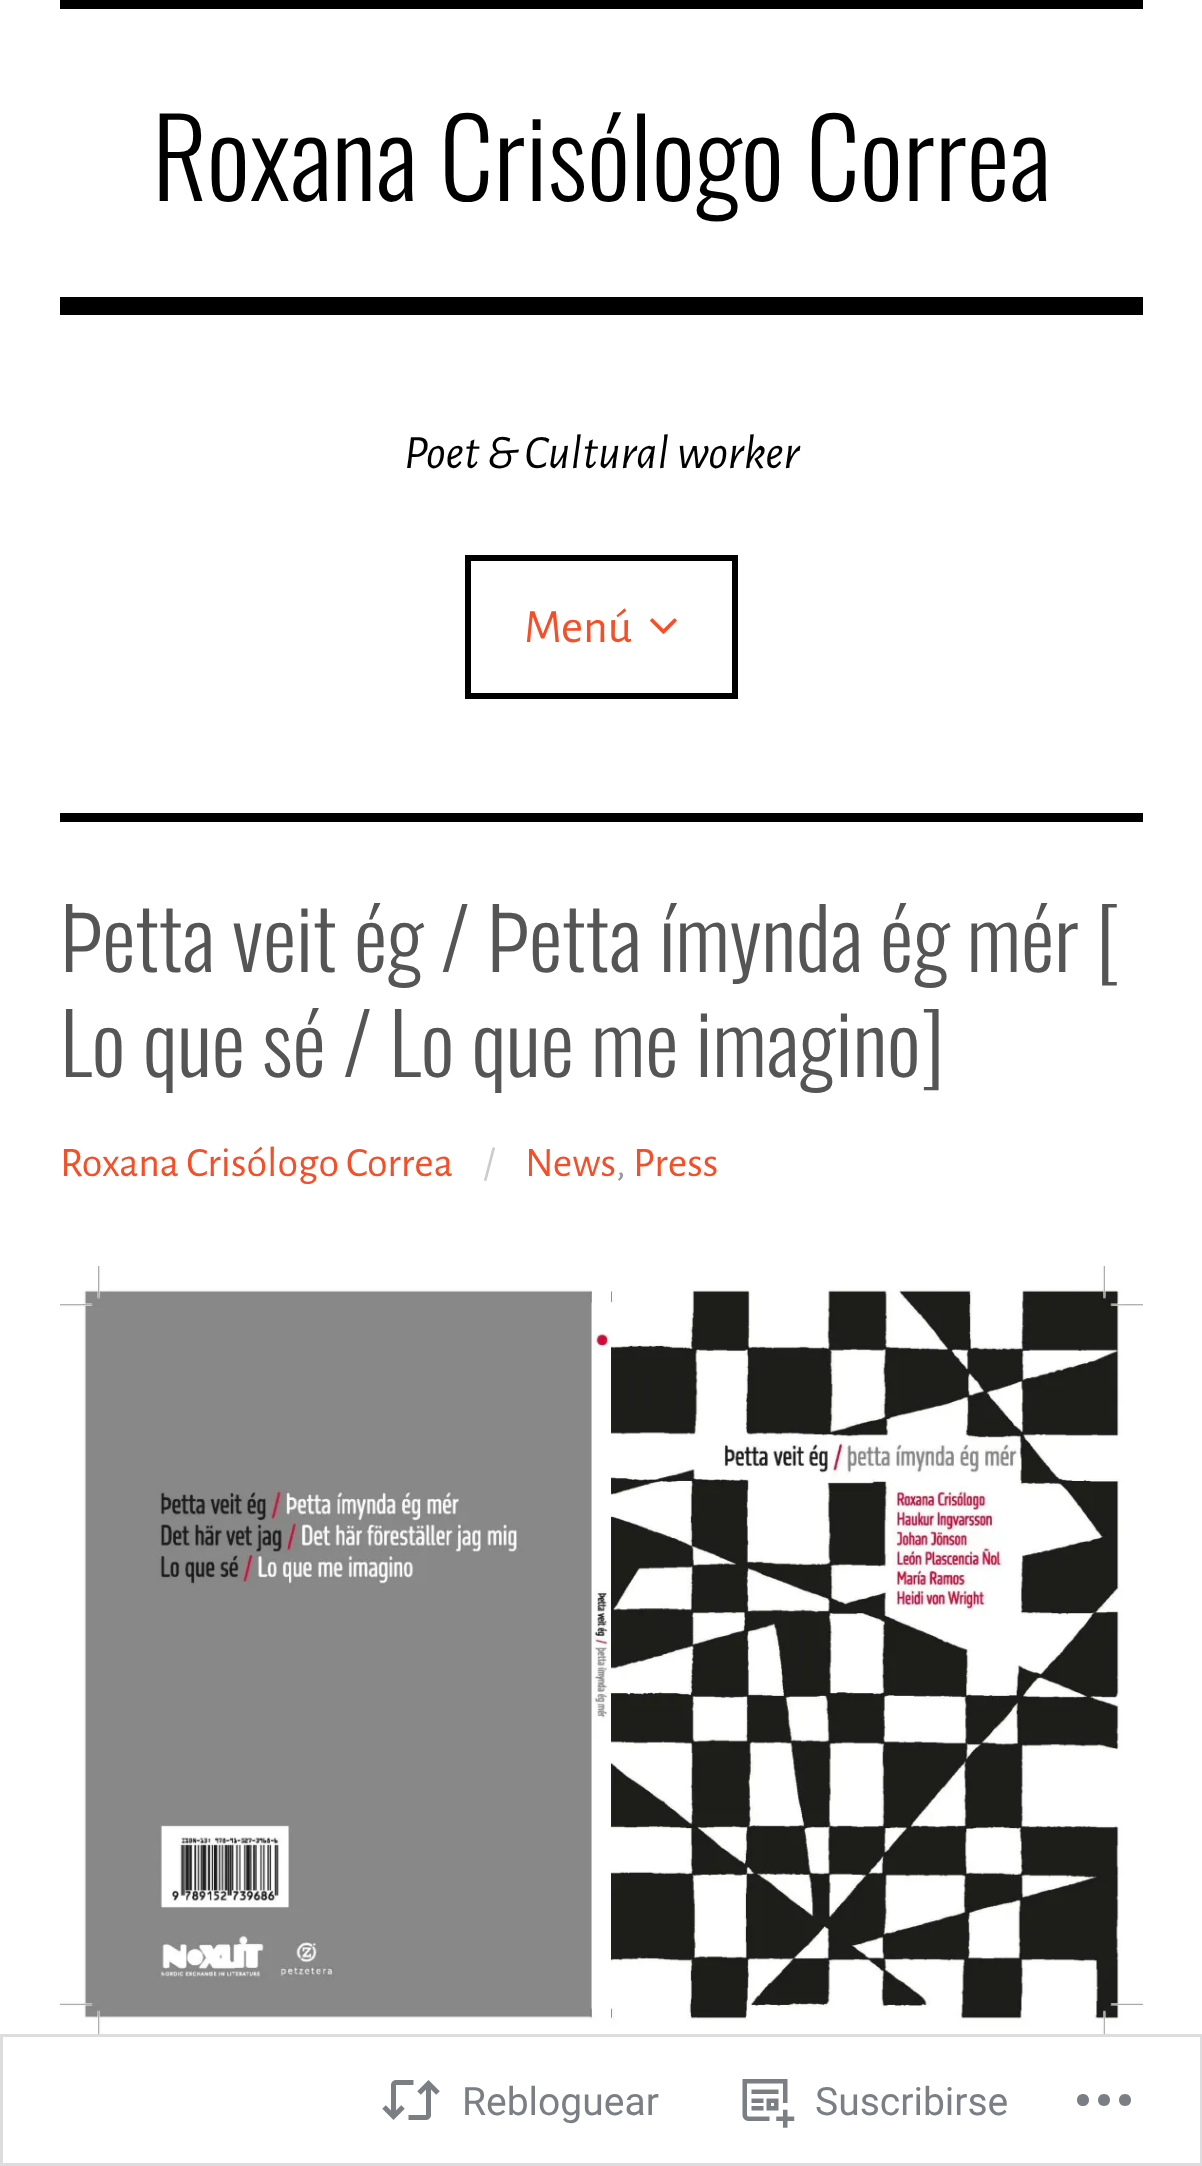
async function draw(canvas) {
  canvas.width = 1202
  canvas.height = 2166
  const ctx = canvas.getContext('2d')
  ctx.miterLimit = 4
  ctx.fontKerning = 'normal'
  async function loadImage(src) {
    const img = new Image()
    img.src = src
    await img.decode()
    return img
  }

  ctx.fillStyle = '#fff'
  ctx.fillRect(0, 0, 1202, 2166)
  ctx.fillStyle = '#000'
  ctx.fillRect(60, 0, 1083, 9)
  ctx.fillRect(60, 297, 1083, 18)
  ctx.font = '300 108px Oswald'
  ctx.fillText('Roxana Crisólogo Correa', 152, 201)
  ctx.font = 'italic 48px Alegreya Sans'
  ctx.fillText('Poet & Cultural worker', 404, 468)
  ctx.strokeStyle = '#000'
  ctx.lineWidth = 6
  ctx.strokeRect(468, 558, 267, 138)
  ctx.font = '48px Alegreya Sans'
  ctx.fillStyle = '#f35029'
  ctx.fillText('Menú', 524, 642)
  ctx.drawImage(await loadImage('image0.png'), 650, 618, 27, 16)
  ctx.fillStyle = '#000'
  ctx.fillRect(60, 813, 1083, 9)
  ctx.font = '300 84px Oswald'
  ctx.fillStyle = '#555'
  ctx.fillText('Þetta veit ég / Þetta ímynda ég mér [', 60, 972)
  ctx.fillText('Lo que sé / Lo que me imagino]', 60, 1077)
  ctx.font = '42px Alegreya Sans'
  ctx.fillStyle = '#f35029'
  ctx.fillText('Roxana Crisólogo Correa', 60, 1176)
  ctx.fillStyle = '#ccc'
  ctx.fillText('/', 483, 1176)
  ctx.fillStyle = '#f35029'
  ctx.fillText('News', 525, 1176)
  ctx.fillStyle = '#999'
  ctx.fillText(',', 616, 1176)
  ctx.fillStyle = '#f35029'
  ctx.fillText('Press', 633, 1176)
  ctx.drawImage(await loadImage('image1.png'), 60, 1266, 1083, 777)
  ctx.fillStyle = '#fffffffa'
  ctx.fillRect(98, 2034, 1007, 9)
  ctx.strokeStyle = '#dcdcdefa'
  ctx.lineWidth = 3
  ctx.strokeRect(1.5, 2035.5, 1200, 129)
  ctx.drawImage(await loadImage('image2.png'), 382, 2080, 58, 40)
  ctx.font = '39px Roboto'
  ctx.fillStyle = '#7b7f85'
  ctx.fillText('Rebloguear', 462, 2115)
  ctx.drawImage(await loadImage('image3.png'), 742, 2079, 53, 49)
  ctx.fillText('Suscribirse', 815, 2115)
  ctx.beginPath()
  ctx.moveTo(1089, 2100)
  ctx.bezierCurveTo(1089, 2108, 1077, 2108, 1077, 2100)
  ctx.bezierCurveTo(1077, 2092, 1089, 2092, 1089, 2100)
  ctx.closePath()
  ctx.moveTo(1125, 2094)
  ctx.bezierCurveTo(1117, 2094, 1117, 2106, 1125, 2106)
  ctx.bezierCurveTo(1133, 2106, 1133, 2094, 1125, 2094)
  ctx.closePath()
  ctx.moveTo(1104, 2094)
  ctx.bezierCurveTo(1096, 2094, 1096, 2106, 1104, 2106)
  ctx.bezierCurveTo(1112, 2106, 1112, 2094, 1104, 2094)
  ctx.closePath()
  ctx.fill()
}

draw(document.querySelector('canvas'))
